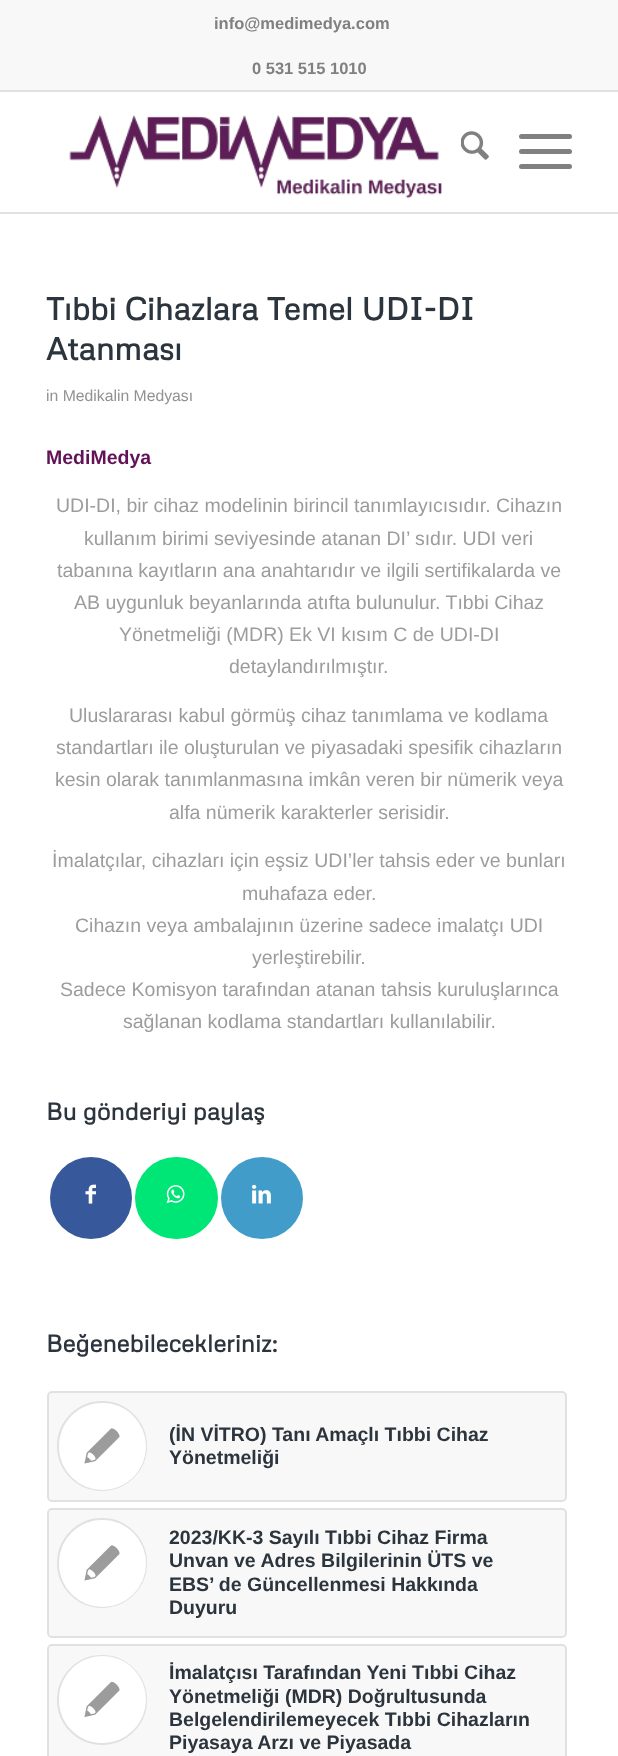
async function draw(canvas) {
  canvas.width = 618
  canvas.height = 1756
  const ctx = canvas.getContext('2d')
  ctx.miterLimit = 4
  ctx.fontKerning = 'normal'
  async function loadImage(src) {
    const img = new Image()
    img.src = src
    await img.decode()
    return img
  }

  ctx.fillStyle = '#fff'
  ctx.fillRect(0, 0, 618, 1756)
  ctx.fillStyle = '#f8f8f8'
  ctx.fillRect(0, 0, 618, 90)
  ctx.fillStyle = '#e1e1e1'
  ctx.fillRect(0, 90, 618, 2)
  ctx.font = 'bold 16.5px Liberation Sans'
  ctx.fillStyle = '#808080'
  ctx.fillText('info@medimedya.com', 214, 29)
  ctx.fillText('0 531 515 1010', 252, 74)
  ctx.fillStyle = '#e1e1e1'
  ctx.fillRect(0, 212, 618, 2)
  ctx.drawImage(await loadImage('image0.png'), 69, 114, 373, 85)
  ctx.drawImage(await loadImage('image1.png'), 461, 131, 28, 29)
  ctx.fillStyle = '#808080'
  ctx.beginPath()
  ctx.roundRect(519, 149, 53, 5, 2.5)
  ctx.fill()
  ctx.beginPath()
  ctx.roundRect(519, 134, 53, 5, 2.5)
  ctx.fill()
  ctx.beginPath()
  ctx.roundRect(519, 164, 53, 5, 2.5)
  ctx.fill()
  ctx.font = 'bold 31.5px Metrophobic'
  ctx.fillStyle = '#2c353d'
  ctx.fillText('Tıbbi Cihazlara Temel UDI-DI', 46, 320)
  ctx.fillText('Atanması', 46, 360)
  ctx.font = '15.75px Liberation Sans'
  ctx.fillStyle = '#919191'
  ctx.fillText('in Medikalin Medyası', 46, 401)
  ctx.font = 'bold 19.5px Liberation Sans'
  ctx.fillStyle = '#611258'
  ctx.fillText('MediMedya', 46, 464)
  ctx.font = '19.5px Liberation Sans'
  ctx.fillStyle = '#9c9c9c'
  ctx.fillText('UDI-DI, bir cihaz modelinin birincil tanımlayıcısıdır. Cihazın', 56, 512)
  ctx.fillText('kullanım birimi seviyesinde atanan DI’ sıdır. UDI veri', 84, 545)
  ctx.fillText('tabanına kayıtların ana anahtarıdır ve ilgili sertifikalarda ve', 57, 577)
  ctx.fillText('AB uygunluk beyanlarında atıfta bulunulur. Tıbbi Cihaz', 74, 609)
  ctx.fillText('Yönetmeliği (MDR) Ek VI kısım C de UDI-DI', 119, 641)
  ctx.fillText('detaylandırılmıştır.', 229, 673)
  ctx.fillText('Uluslararası kabul görmüş cihaz tanımlama ve kodlama', 69, 722)
  ctx.fillText('standartları ile oluşturulan ve piyasadaki spesifik cihazların', 56, 754)
  ctx.fillText('kesin olarak tanımlanmasına imkân veren bir nümerik veya', 55, 786)
  ctx.fillText('alfa nümerik karakterler serisidir.', 169, 819)
  ctx.fillText('İmalatçılar, cihazları için eşsiz UDI’ler tahsis eder ve bunları', 52, 867)
  ctx.fillText('muhafaza eder.', 242, 900)
  ctx.fillText('Cihazın veya ambalajının üzerine sadece imalatçı UDI', 75, 932)
  ctx.fillText('yerleştirebilir.', 252, 964)
  ctx.fillText('Sadece Komisyon tarafından atanan tahsis kuruluşlarınca', 60, 996)
  ctx.fillText('sağlanan kodlama standartları kullanılabilir.', 123, 1028)
  ctx.font = 'bold 24px Metrophobic'
  ctx.fillStyle = '#2c353d'
  ctx.fillText('Bu gönderiyi paylaş', 46, 1120)
  ctx.fillStyle = '#37589b'
  ctx.beginPath()
  ctx.arc(91, 1198, 41, 0, 2 * Math.PI)
  ctx.fill()
  ctx.drawImage(await loadImage('image2.png'), 85, 1184, 11, 20)
  ctx.fillStyle = '#00e676'
  ctx.beginPath()
  ctx.roundRect(135, 1157, 83, 82, 41)
  ctx.fill()
  ctx.drawImage(await loadImage('image3.png'), 166, 1185, 19, 19)
  ctx.fillStyle = '#419cca'
  ctx.beginPath()
  ctx.arc(262, 1198, 41, 0, 2 * Math.PI)
  ctx.fill()
  ctx.drawImage(await loadImage('image4.png'), 252, 1184, 19, 20)
  ctx.fillStyle = '#2c353d'
  ctx.fillText('Beğenebilecekleriniz:', 46, 1352)
  ctx.fillStyle = '#f8f8f8'
  ctx.beginPath()
  ctx.roundRect(48, 1392, 518, 109, 4)
  ctx.fill()
  ctx.strokeStyle = '#e1e1e1'
  ctx.lineWidth = 2
  ctx.stroke()
  ctx.beginPath()
  ctx.arc(102, 1446, 44, 0, 2 * Math.PI)
  ctx.stroke()
  ctx.fillStyle = '#fff'
  ctx.beginPath()
  ctx.arc(102.5, 1446.5, 43.5, 0, 2 * Math.PI)
  ctx.fill()
  ctx.drawImage(await loadImage('image5.png'), 84, 1428, 36, 36)
  ctx.font = 'bold 19.5px Liberation Sans'
  ctx.fillStyle = '#2c353d'
  ctx.fillText('(İN VİTRO) Tanı Amaçlı Tıbbi Cihaz', 169, 1441)
  ctx.fillText('Yönetmeliği', 169, 1464)
  ctx.fillStyle = '#f8f8f8'
  ctx.beginPath()
  ctx.roundRect(48, 1509, 518, 128, 4)
  ctx.fill()
  ctx.stroke()
  ctx.beginPath()
  ctx.arc(102, 1563, 44, 0, 2 * Math.PI)
  ctx.stroke()
  ctx.fillStyle = '#fff'
  ctx.beginPath()
  ctx.arc(102.5, 1563.5, 43.5, 0, 2 * Math.PI)
  ctx.fill()
  ctx.drawImage(await loadImage('image5.png'), 84, 1545, 36, 36)
  ctx.fillStyle = '#2c353d'
  ctx.fillText('2023/KK-3 Sayılı Tıbbi Cihaz Firma', 169, 1544)
  ctx.fillText('Unvan ve Adres Bilgilerinin ÜTS ve', 169, 1567)
  ctx.fillText('EBS’ de Güncellenmesi Hakkında', 169, 1591)
  ctx.fillText('Duyuru', 169, 1614)
  ctx.fillStyle = '#f8f8f8'
  ctx.beginPath()
  ctx.roundRect(48, 1645, 518, 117, 4)
  ctx.fill()
  ctx.stroke()
  ctx.beginPath()
  ctx.arc(102, 1700, 44, 0, 2 * Math.PI)
  ctx.stroke()
  ctx.fillStyle = '#fff'
  ctx.beginPath()
  ctx.arc(102.5, 1699.5, 43.5, 0, 2 * Math.PI)
  ctx.fill()
  ctx.drawImage(await loadImage('image6.png'), 84, 1681, 36, 36)
  ctx.fillStyle = '#2c353d'
  ctx.fillText('İmalatçısı Tarafından Yeni Tıbbi Cihaz', 169, 1679)
  ctx.fillText('Yönetmeliği (MDR) Doğrultusunda', 169, 1703)
  ctx.fillText('Belgelendirilemeyecek Tıbbi Cihazların', 169, 1726)
  ctx.fillText('Piyasaya Arzı ve Piyasada', 169, 1749)
}

draw(document.querySelector('canvas'))
